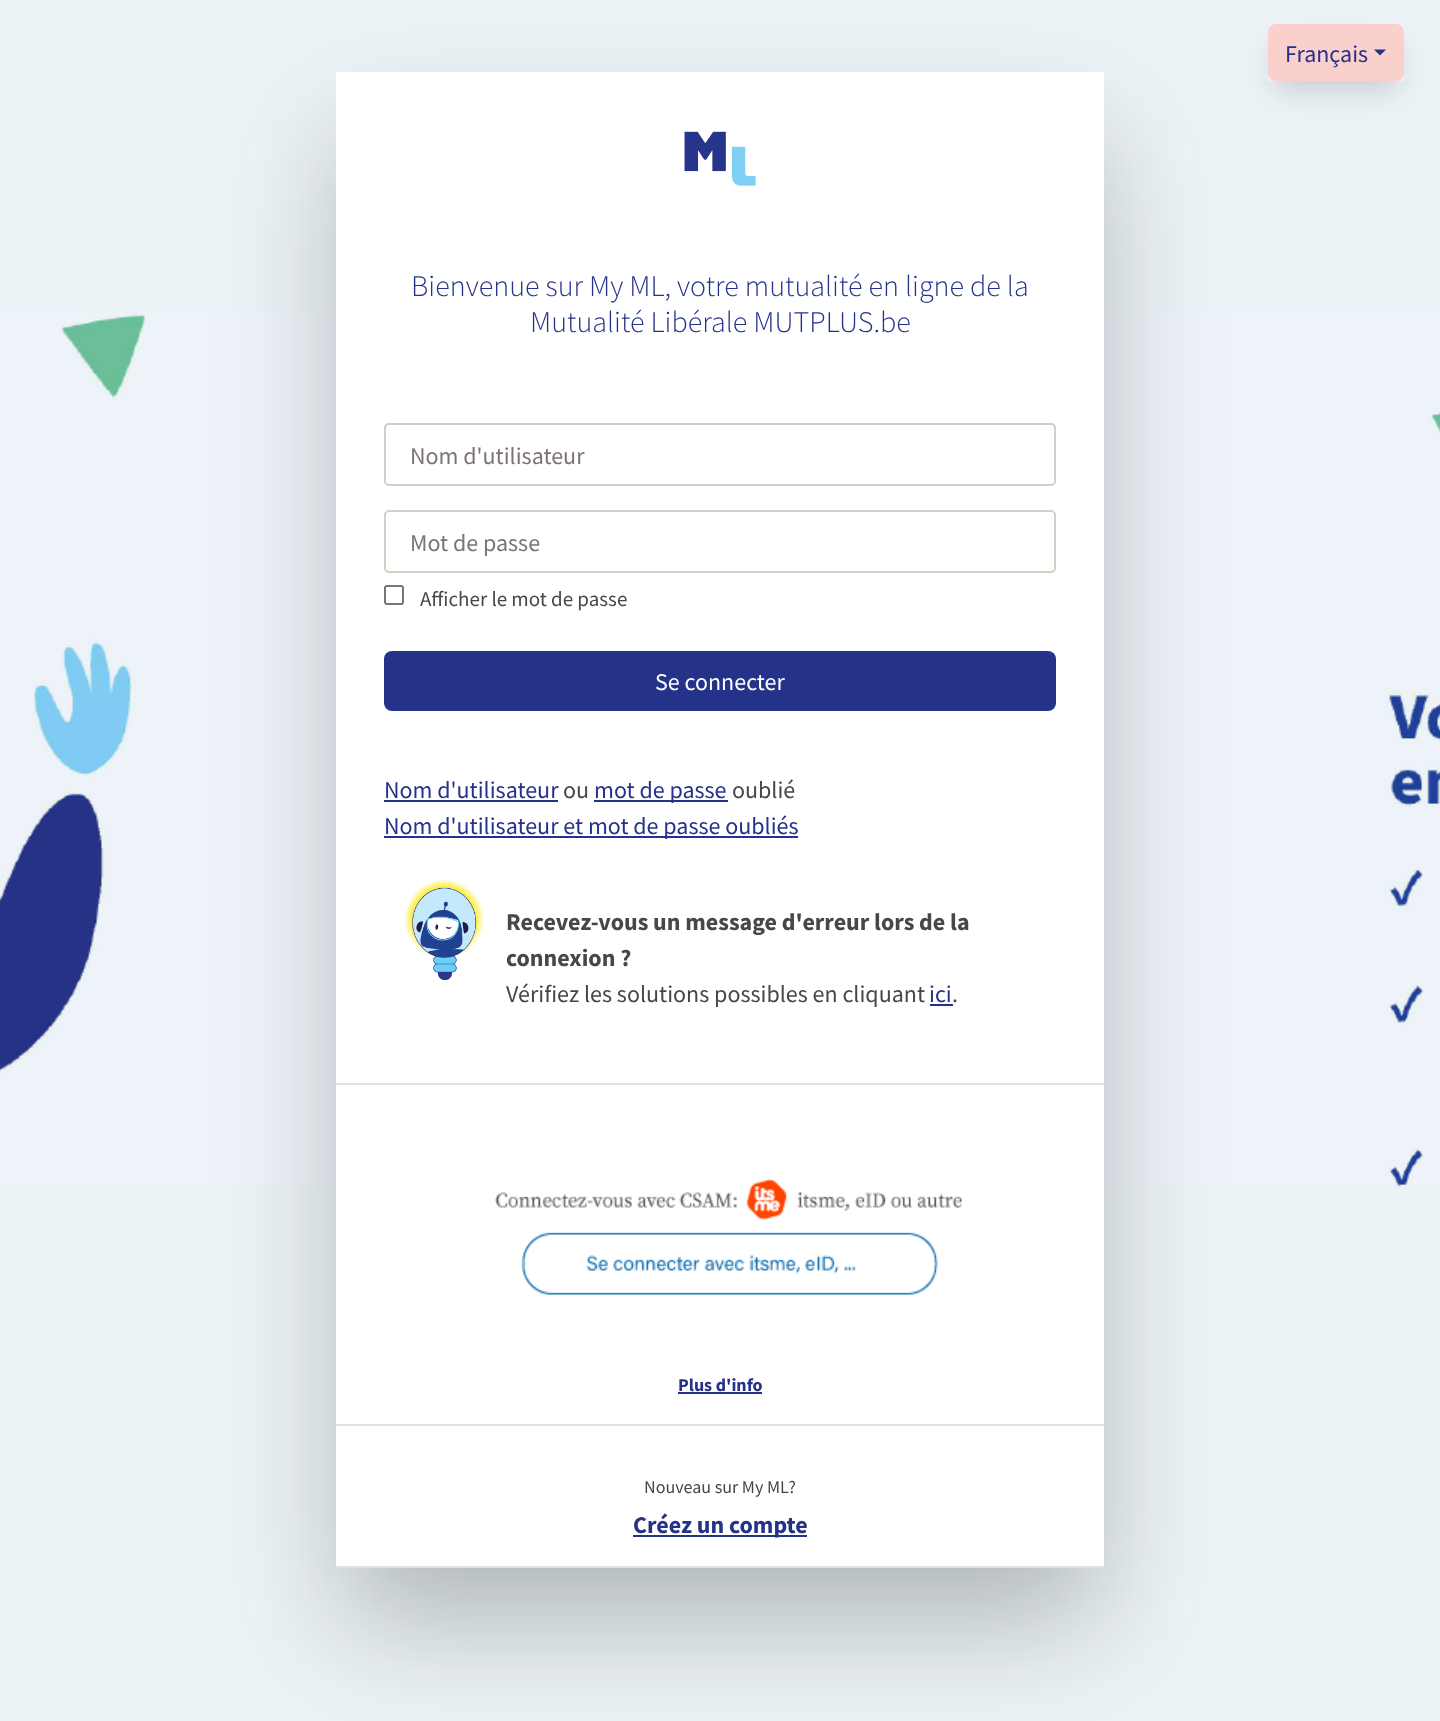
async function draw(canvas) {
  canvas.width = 1440
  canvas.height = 1721
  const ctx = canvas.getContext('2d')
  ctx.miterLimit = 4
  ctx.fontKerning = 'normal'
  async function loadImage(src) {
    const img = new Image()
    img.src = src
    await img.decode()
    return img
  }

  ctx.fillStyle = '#ecf3f6'
  ctx.fillRect(0, 0, 1440, 1721)
  ctx.save()
  ctx.beginPath()
  ctx.moveTo(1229, 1)
  ctx.lineTo(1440, 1)
  ctx.lineTo(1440, 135)
  ctx.lineTo(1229, 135)
  ctx.closePath()
  ctx.moveTo(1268, 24)
  ctx.lineTo(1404, 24)
  ctx.lineTo(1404, 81)
  ctx.lineTo(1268, 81)
  ctx.closePath()
  ctx.clip('evenodd')
  ctx.fillStyle = '#21252933'
  ctx.filter = 'blur(15px)'
  ctx.beginPath()
  ctx.rect(1275, 47, 122, 42)
  ctx.fill()
  ctx.filter = 'none'
  ctx.restore()
  ctx.drawImage(await loadImage('image3.png'), 0, 312, 1440, 875)
  ctx.fillStyle = '#2125294d'
  ctx.filter = 'blur(60px)'
  ctx.beginPath()
  ctx.rect(344, 140, 753, 1480)
  ctx.fill()
  ctx.filter = 'none'
  ctx.fillStyle = '#fad0cd'
  ctx.beginPath()
  ctx.roundRect(1268, 24, 136, 57, 8)
  ctx.fill()
  ctx.font = '24px Source Sans Pro'
  ctx.fillStyle = '#25328a'
  ctx.fillText('Français', 1285, 62)
  ctx.beginPath()
  ctx.moveTo(1374, 49.5)
  ctx.lineTo(1386, 49.5)
  ctx.lineTo(1380, 55.5)
  ctx.closePath()
  ctx.fill()
  ctx.fillStyle = '#fff'
  ctx.fillRect(336, 72, 768, 1494)
  ctx.fillStyle = '#e8e1d9'
  ctx.fillRect(336, 1566, 768, 2)
  ctx.drawImage(await loadImage('image0.png'), 684, 131, 72, 55)
  ctx.font = '300 30px Source Sans Pro'
  ctx.fillStyle = '#25328a'
  ctx.fillText('Bienvenue sur My ML, votre mutualité en ligne de la', 411, 296)
  ctx.fillText('Mutualité Libérale MUTPLUS.be', 530, 332)
  ctx.beginPath()
  ctx.roundRect(385, 424, 670, 61, 4)
  ctx.strokeStyle = '#d6cdc4'
  ctx.lineWidth = 2
  ctx.stroke()
  ctx.font = '24px Source Sans Pro'
  ctx.fillStyle = '#7d7373'
  ctx.fillText('Nom d\'utilisateur', 410, 464)
  ctx.beginPath()
  ctx.roundRect(385, 511, 670, 61, 4)
  ctx.stroke()
  ctx.fillText('Mot de passe', 410, 551)
  ctx.beginPath()
  ctx.roundRect(385, 586, 18, 18, 2)
  ctx.strokeStyle = '#767676'
  ctx.stroke()
  ctx.font = '21px Source Sans Pro'
  ctx.fillStyle = '#494643'
  ctx.fillText('Afficher le mot de passe', 420, 606)
  ctx.fillStyle = '#25328a'
  ctx.beginPath()
  ctx.roundRect(384, 651, 672, 60, 8)
  ctx.fill()
  ctx.font = '24px Source Sans Pro'
  ctx.fillStyle = '#fff'
  ctx.fillText('Se connecter', 655, 690)
  ctx.fillStyle = '#25328a'
  ctx.fillText('Nom d\'utilisateur', 384, 798)
  ctx.fillRect(384, 800, 174, 2)
  ctx.fillStyle = '#494643'
  ctx.fillText('ou', 563, 798)
  ctx.fillStyle = '#25328a'
  ctx.fillRect(594, 800, 134, 2)
  ctx.fillText('mot de passe', 594, 798)
  ctx.fillStyle = '#494643'
  ctx.fillText('oublié', 732, 798)
  ctx.fillStyle = '#25328a'
  ctx.fillRect(384, 836, 414, 2)
  ctx.fillText('Nom d\'utilisateur et mot de passe oubliés', 384, 834)
  ctx.drawImage(await loadImage('image1.png'), 404, 879, 80, 101)
  ctx.font = 'bold 24px Source Sans Pro'
  ctx.fillStyle = '#494643'
  ctx.fillText('Recevez-vous un message d\'erreur lors de la', 506, 930)
  ctx.fillText('connexion ?', 506, 966)
  ctx.font = '24px Source Sans Pro'
  ctx.fillText('Vérifiez les solutions possibles en cliquant', 506, 1002)
  ctx.fillStyle = '#25328a'
  ctx.fillText('ici', 929, 1002)
  ctx.fillRect(930, 1004, 23, 2)
  ctx.fillStyle = '#494643'
  ctx.fillText('.', 952, 1002)
  ctx.fillStyle = '#e8e1d9'
  ctx.fillRect(336, 1083, 768, 2)
  ctx.drawImage(await loadImage('image2.png'), 494, 1178, 468, 117)
  ctx.font = 'bold 18px Source Sans Pro'
  ctx.fillStyle = '#25328a'
  ctx.fillText('Plus d\'info', 678, 1391)
  ctx.fillRect(678, 1392, 84, 2)
  ctx.fillStyle = '#e8e1d9'
  ctx.fillRect(336, 1424, 768, 2)
  ctx.font = '18px Source Sans Pro'
  ctx.fillStyle = '#494643'
  ctx.fillText('Nouveau sur My ML?', 644, 1493)
  ctx.fillStyle = '#25328a'
  ctx.fillRect(633, 1535, 174, 2)
  ctx.font = 'bold 24px Source Sans Pro'
  ctx.fillText('Créez un compte', 633, 1533)
}

draw(document.querySelector('canvas'))
